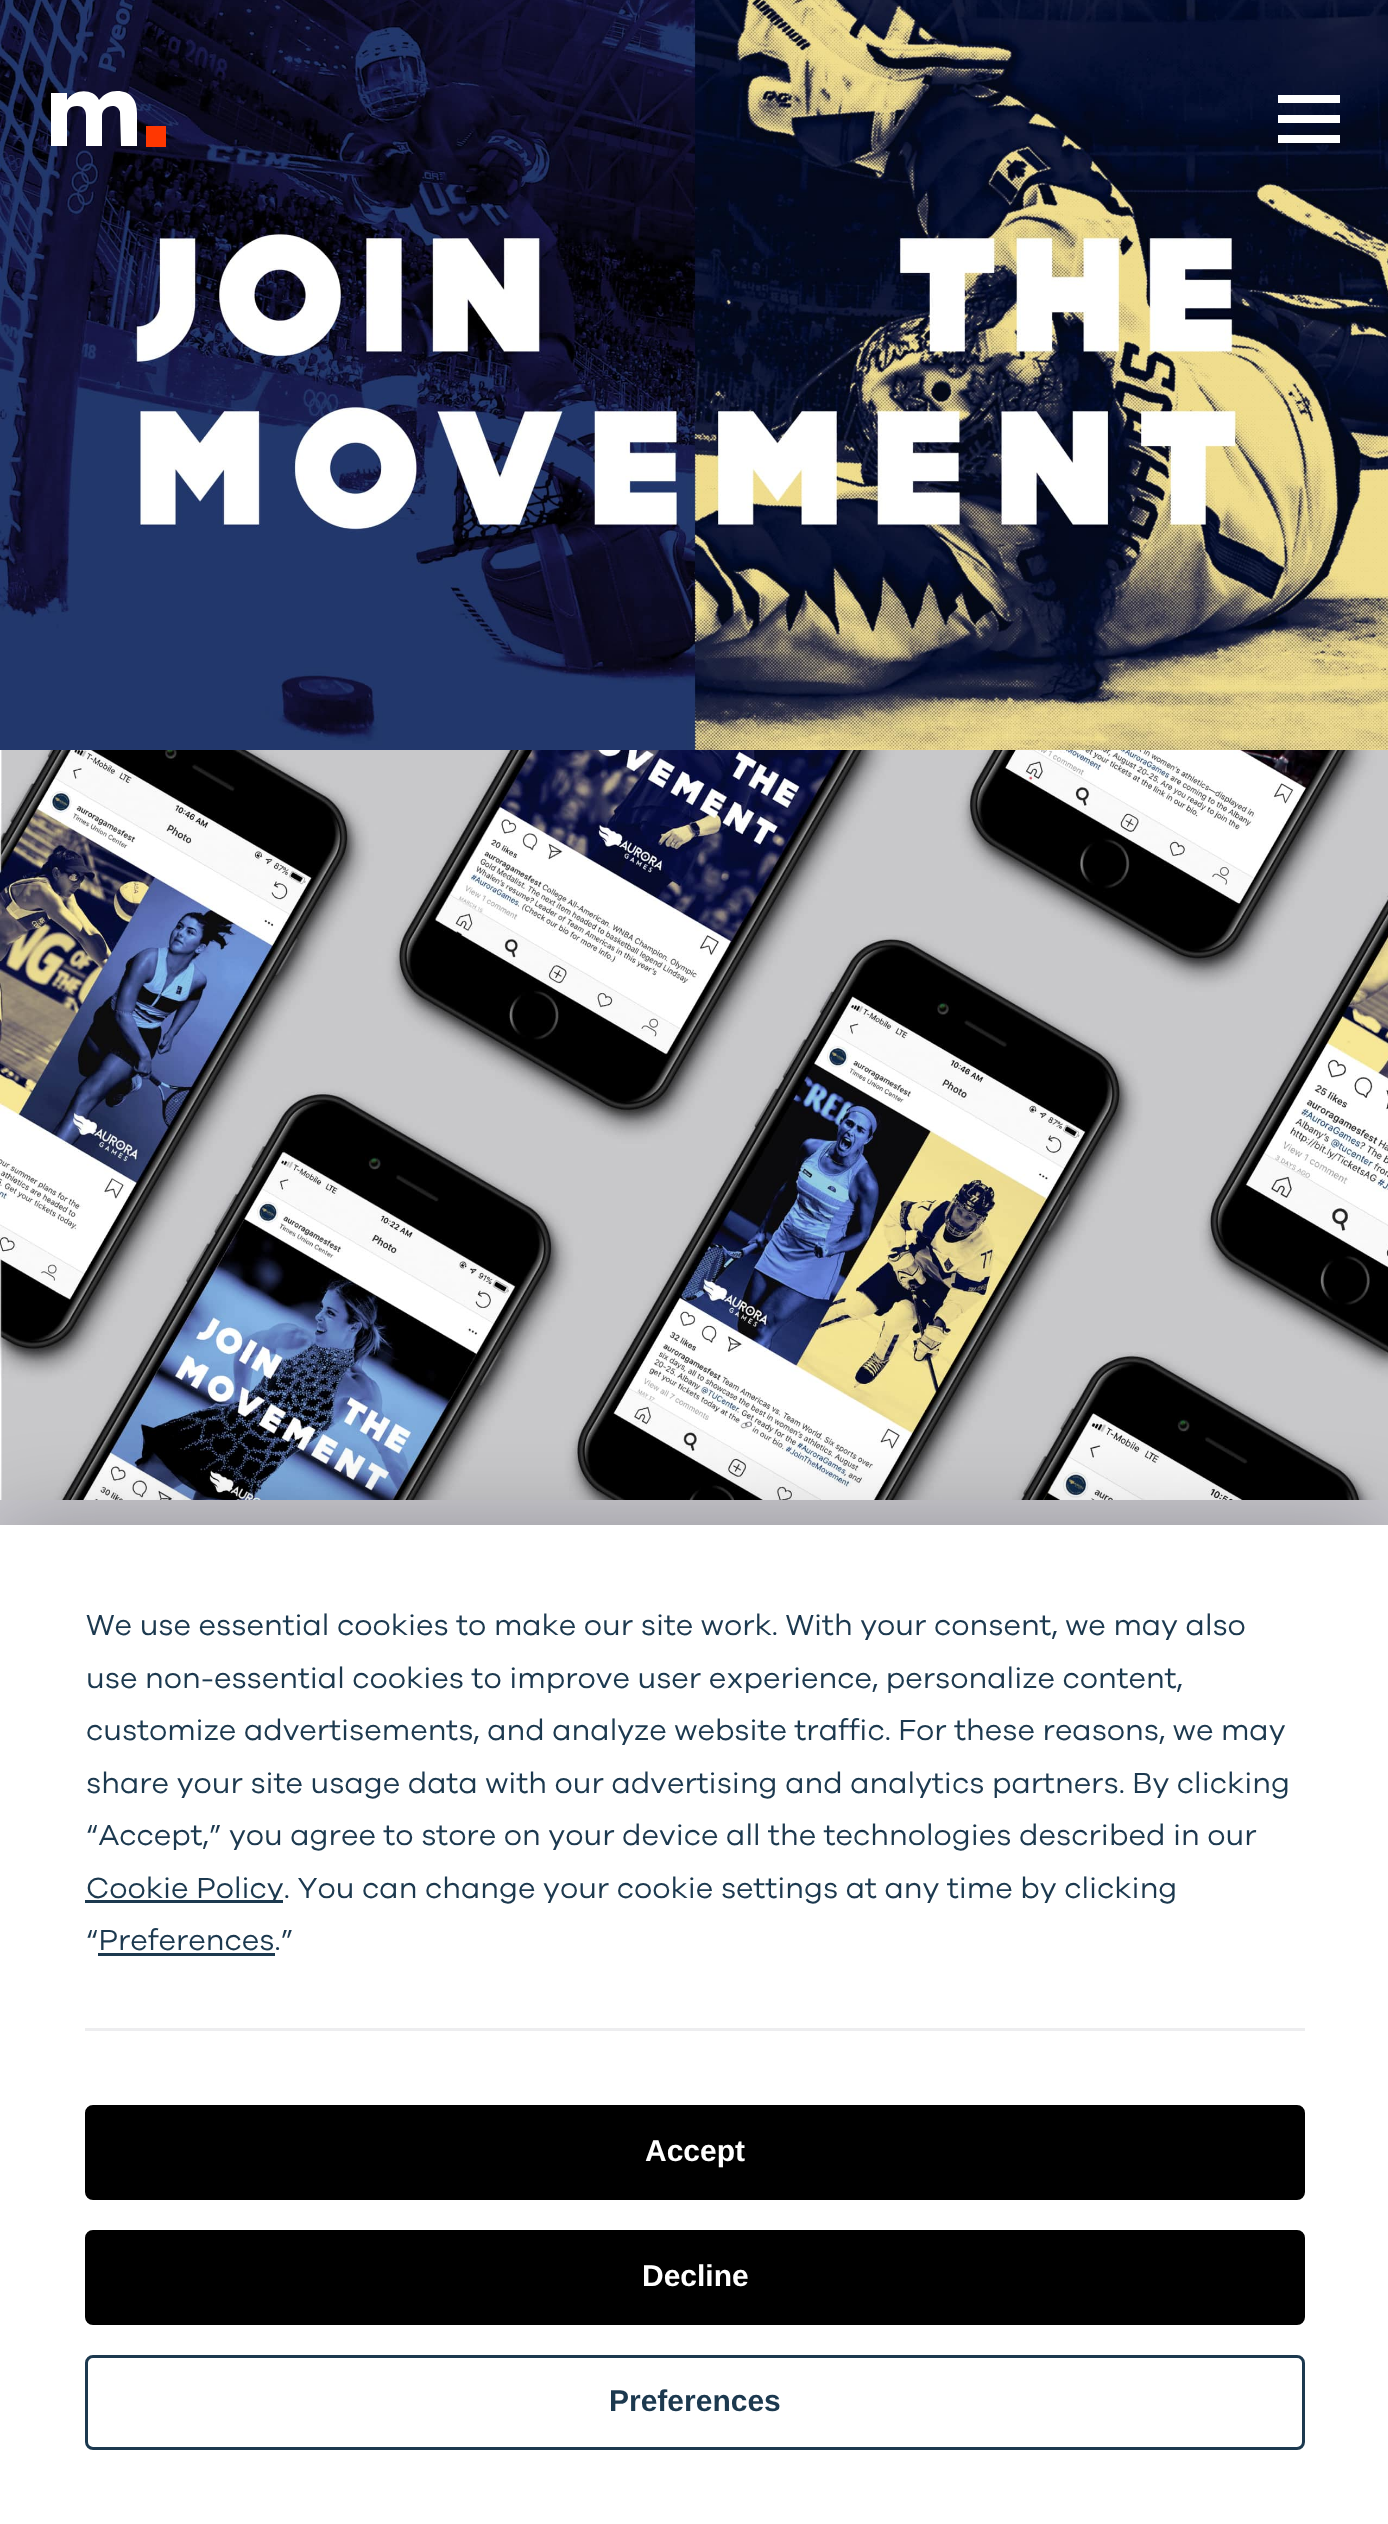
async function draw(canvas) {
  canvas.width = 1388
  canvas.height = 2524
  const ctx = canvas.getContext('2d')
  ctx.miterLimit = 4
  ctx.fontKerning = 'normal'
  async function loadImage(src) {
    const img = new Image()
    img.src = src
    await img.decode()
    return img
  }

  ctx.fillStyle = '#c9c8ce'
  ctx.fillRect(0, 0, 1388, 2524)
  ctx.drawImage(await loadImage('image0.png'), 0, 0, 1388, 750)
  ctx.drawImage(await loadImage('image1.png'), 0, 750, 1388, 750)
  ctx.fillStyle = '#ff3701'
  ctx.fillRect(146, 126, 20, 21)
  ctx.fillStyle = '#fff'
  ctx.beginPath()
  ctx.moveTo(102, 116)
  ctx.lineTo(102, 146)
  ctx.lineTo(86, 146)
  ctx.lineTo(86, 116)
  ctx.bezierCurveTo(86, 111, 84, 106, 77, 106)
  ctx.bezierCurveTo(70, 106, 67, 110, 67, 116)
  ctx.lineTo(67, 146)
  ctx.lineTo(51, 146)
  ctx.lineTo(51, 93)
  ctx.lineTo(67, 93)
  ctx.lineTo(67, 100)
  ctx.bezierCurveTo(74, 89, 93, 88, 99, 100)
  ctx.bezierCurveTo(104, 94, 110, 91, 117, 91)
  ctx.bezierCurveTo(131, 91, 137, 100, 137, 113)
  ctx.lineTo(137, 146)
  ctx.lineTo(121, 146)
  ctx.lineTo(120, 112)
  ctx.bezierCurveTo(118, 102, 102, 105, 102, 116)
  ctx.closePath()
  ctx.fill('evenodd')
  ctx.fillRect(1278, 95, 62, 8)
  ctx.fillRect(1278, 115, 62, 8)
  ctx.fillRect(1278, 135, 62, 8)
  ctx.fillStyle = '#00000040'
  ctx.filter = 'blur(44px)'
  ctx.beginPath()
  ctx.rect(0, 1525, 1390, 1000)
  ctx.fill()
  ctx.filter = 'none'
  ctx.fillStyle = '#fff'
  ctx.fillRect(0, 1525, 1388, 999)
  ctx.font = '30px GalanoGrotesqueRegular'
  ctx.fillStyle = '#1c394f'
  ctx.fillText('We use essential cookies to make our site work. With your consent, we may also', 86, 1635)
  ctx.fillText('use non-essential cookies to improve user experience, personalize content,', 86, 1688)
  ctx.fillText('customize advertisements, and analyze website traffic. For these reasons, we may', 86, 1740)
  ctx.fillText('share your site usage data with our advertising and analytics partners. By clicking', 86, 1793)
  ctx.fillText('“Accept,” you agree to store on your device all the technologies described in our', 86, 1845)
  ctx.fillRect(85, 1900, 198, 3)
  ctx.fillText('Cookie Policy. You can change your cookie settings at any time by clicking', 86, 1898)
  ctx.fillText('“Preferences.”', 86, 1950)
  ctx.fillRect(98, 1953, 177, 3)
  ctx.fillStyle = '#ededef'
  ctx.fillRect(85, 2028, 1220, 3)
  ctx.fillStyle = '#000'
  ctx.beginPath()
  ctx.roundRect(86.5, 2106.5, 1217, 92, 6.5)
  ctx.fill()
  ctx.strokeStyle = '#000'
  ctx.lineWidth = 3
  ctx.stroke()
  ctx.font = 'bold 30px Liberation Sans'
  ctx.fillStyle = '#fff'
  ctx.fillText('Accept', 645, 2161)
  ctx.fillStyle = '#000'
  ctx.beginPath()
  ctx.roundRect(86.5, 2231.5, 1217, 92, 6.5)
  ctx.fill()
  ctx.stroke()
  ctx.fillStyle = '#fff'
  ctx.fillText('Decline', 642, 2286)
  ctx.beginPath()
  ctx.roundRect(86.5, 2356.5, 1217, 92, 6.5)
  ctx.strokeStyle = '#1c394f'
  ctx.stroke()
  ctx.fillStyle = '#1c394f'
  ctx.fillText('Preferences', 609, 2411)
}

draw(document.querySelector('canvas'))
